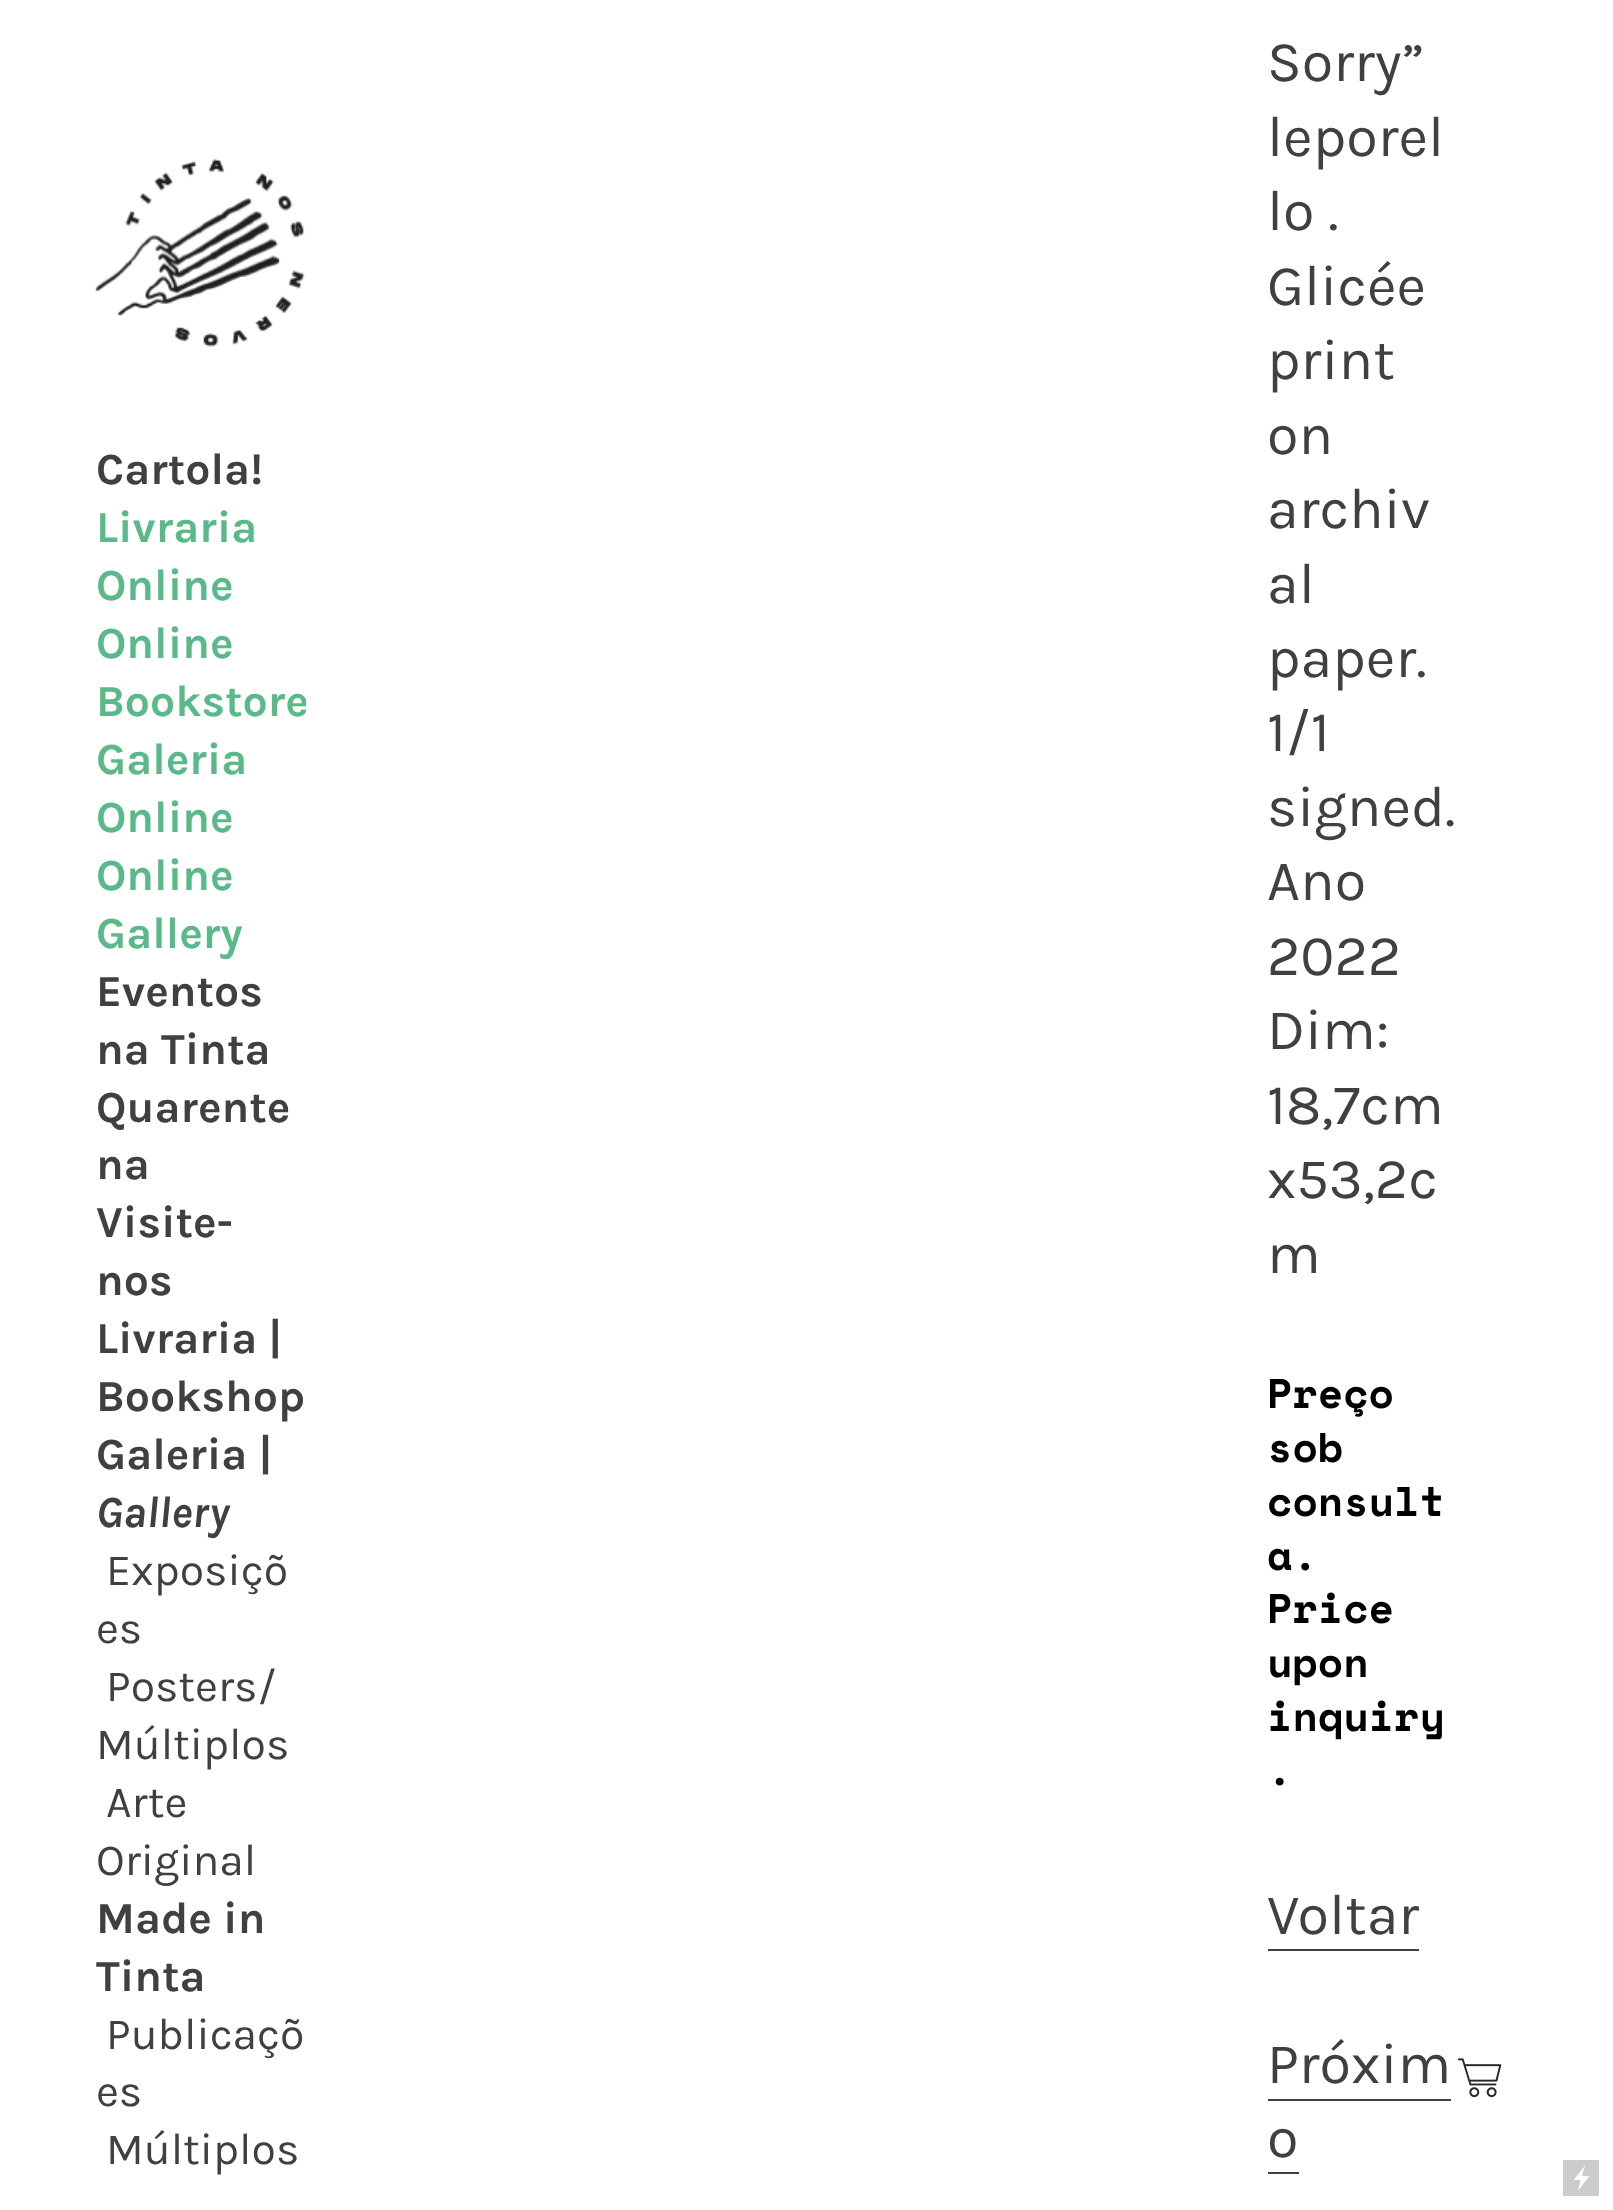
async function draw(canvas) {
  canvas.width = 1613
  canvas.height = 2210
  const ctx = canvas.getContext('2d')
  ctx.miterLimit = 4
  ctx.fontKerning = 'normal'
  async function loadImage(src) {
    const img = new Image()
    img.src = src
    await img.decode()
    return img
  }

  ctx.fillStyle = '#fff'
  ctx.fillRect(0, 0, 1613, 2210)
  ctx.drawImage(await loadImage('image0.png'), 95, 159, 210, 188)
  ctx.font = 'bold 44.5px Karla'
  ctx.fillStyle = '#404040'
  ctx.fillText('Cartola!', 96, 484)
  ctx.fillStyle = '#5ab988'
  ctx.fillText('Livraria', 96, 542)
  ctx.fillText('Online', 96, 600)
  ctx.fillText('Online', 96, 658)
  ctx.save()
  ctx.beginPath()
  ctx.rect(0, 0, 306, 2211)
  ctx.clip()
  ctx.fillText('Bookstore', 96, 716)
  ctx.restore()
  ctx.fillText('Galeria', 96, 774)
  ctx.fillText('Online', 96, 832)
  ctx.fillText('Online', 96, 890)
  ctx.fillText('Gallery', 96, 948)
  ctx.fillStyle = '#404040'
  ctx.fillText('Eventos', 96, 1006)
  ctx.fillText('na Tinta', 96, 1064)
  ctx.fillText('Quarente', 96, 1122)
  ctx.fillText('na', 96, 1179)
  ctx.fillText('Visite-', 96, 1237)
  ctx.fillText('nos', 96, 1295)
  ctx.fillText('Livraria |', 96, 1353)
  ctx.fillText('Bookshop', 96, 1411)
  ctx.fillText('Galeria |', 96, 1469)
  ctx.font = 'italic bold 44.5px Karla'
  ctx.fillText('Gallery', 96, 1527)
  ctx.font = '44.5px Karla'
  ctx.fillText('Exposiçõ', 106, 1585)
  ctx.fillText('es', 96, 1643)
  ctx.fillText('Posters/', 106, 1701)
  ctx.fillText('Múltiplos', 96, 1759)
  ctx.fillText('Arte', 106, 1817)
  ctx.fillText('Original', 96, 1875)
  ctx.font = 'bold 44.5px Karla'
  ctx.fillText('Made in', 96, 1933)
  ctx.fillText('Tinta', 96, 1991)
  ctx.font = '44.5px Karla'
  ctx.fillText('Publicaçõ', 106, 2049)
  ctx.fillText('es', 96, 2106)
  ctx.fillText('Múltiplos', 106, 2164)
  ctx.font = '57.5px Karla'
  ctx.fillText('Sorry”', 1267, 81)
  ctx.fillText('leporel', 1267, 156)
  ctx.fillText('lo .', 1267, 230)
  ctx.fillText('Glicée', 1267, 305)
  ctx.fillText('print', 1267, 379)
  ctx.fillText('on', 1267, 454)
  ctx.fillText('archiv', 1267, 528)
  ctx.fillText('al', 1267, 603)
  ctx.fillText('paper.', 1267, 677)
  ctx.fillText('1/1', 1267, 751)
  ctx.fillText('signed.', 1267, 826)
  ctx.fillText('Ano', 1267, 900)
  ctx.fillText('2022', 1267, 975)
  ctx.fillText('Dim:', 1267, 1049)
  ctx.fillText('18,7cm', 1267, 1124)
  ctx.fillText('x53,2c', 1267, 1198)
  ctx.fillText('m', 1267, 1273)
  ctx.font = 'bold 41.5px Space Mono'
  ctx.fillStyle = '#000'
  ctx.fillText('Preço', 1267, 1408)
  ctx.fillText('sob', 1267, 1462)
  ctx.fillText('consult', 1267, 1516)
  ctx.fillText('a.', 1267, 1570)
  ctx.fillText('Price', 1267, 1623)
  ctx.fillText('upon', 1267, 1677)
  ctx.fillText('inquiry', 1267, 1731)
  ctx.fillText('.', 1267, 1785)
  ctx.font = '57.5px Karla'
  ctx.fillStyle = '#404040'
  ctx.fillText('Voltar', 1267, 1934)
  ctx.fillRect(1268, 1949, 151, 2)
  ctx.fillText('Próxim', 1267, 2083)
  ctx.fillRect(1268, 2099, 183, 2)
  ctx.fillText('o', 1267, 2157)
  ctx.fillRect(1268, 2172, 31, 2)
  ctx.drawImage(await loadImage('image1.png'), 1457, 2058, 45, 40)
  ctx.fillStyle = '#ccc'
  ctx.fillRect(1563, 2160, 36, 36)
  ctx.fillStyle = '#fff'
  ctx.beginPath()
  ctx.moveTo(1589.5, 2176)
  ctx.lineTo(1582, 2176)
  ctx.lineTo(1585, 2165.5)
  ctx.lineTo(1573.5, 2180)
  ctx.lineTo(1580.5, 2180)
  ctx.lineTo(1578, 2190.5)
  ctx.closePath()
  ctx.fill()
}

draw(document.querySelector('canvas'))
